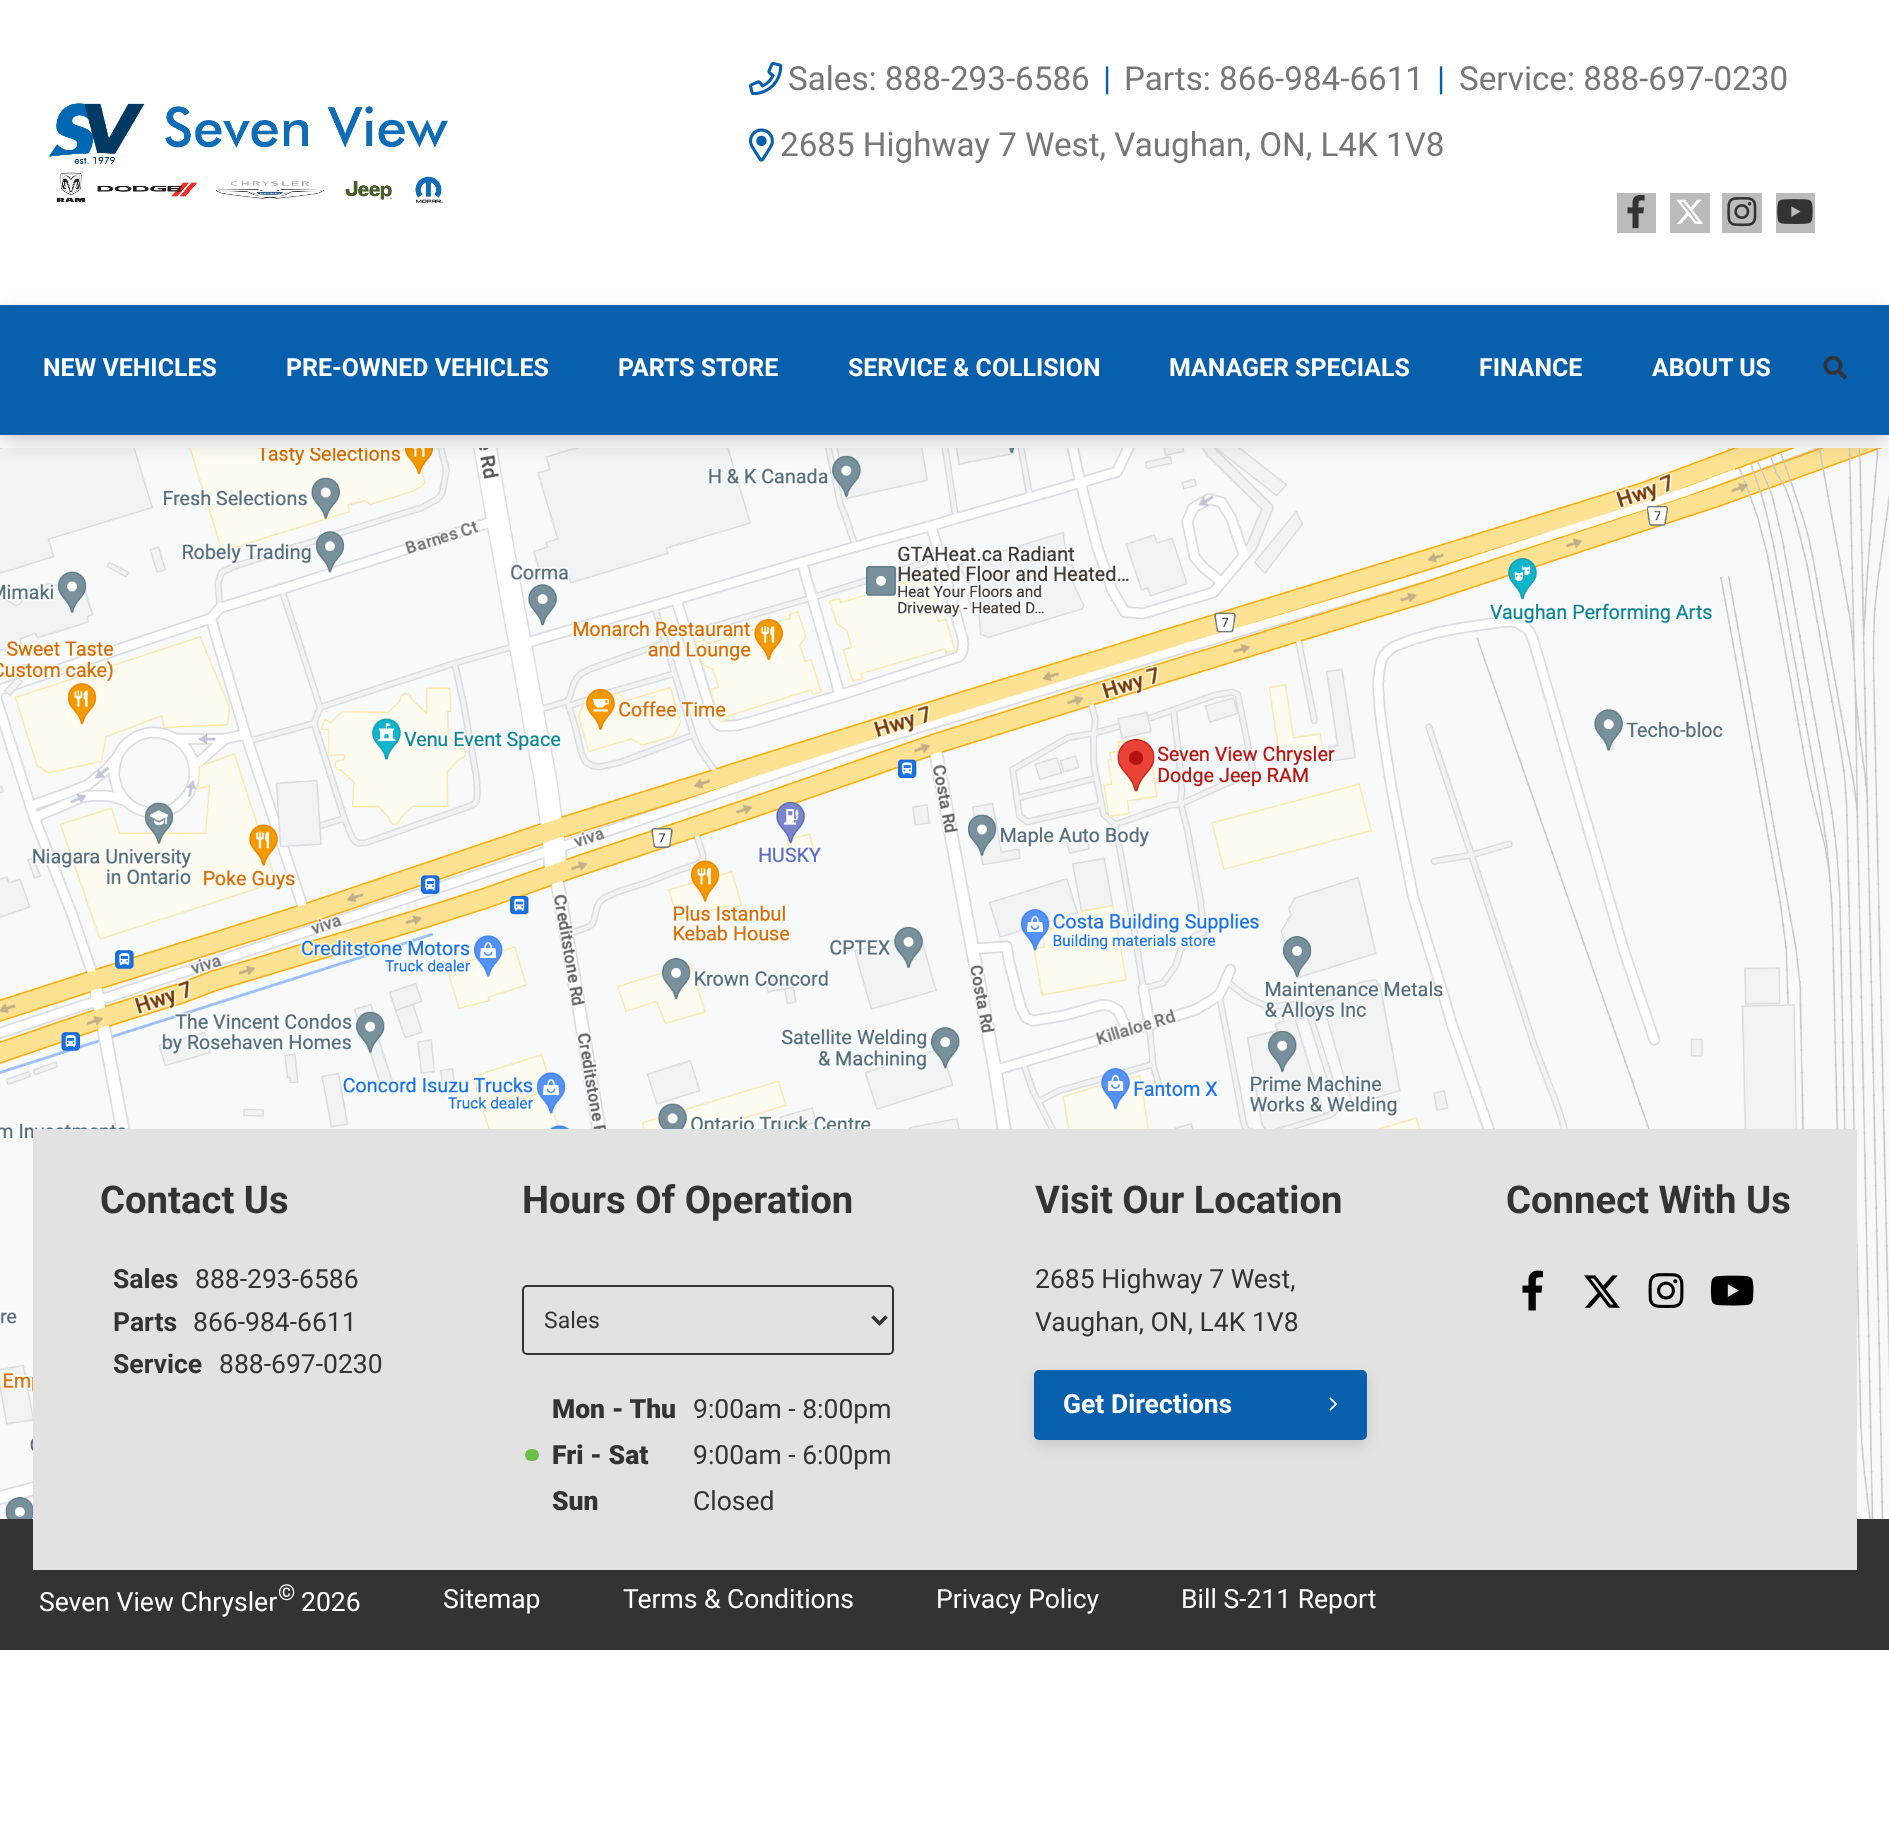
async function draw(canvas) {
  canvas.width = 1889
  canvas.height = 1845
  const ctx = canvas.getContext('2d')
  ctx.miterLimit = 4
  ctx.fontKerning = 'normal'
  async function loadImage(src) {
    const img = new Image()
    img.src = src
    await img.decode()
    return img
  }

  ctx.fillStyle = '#fff'
  ctx.fillRect(0, 0, 1889, 1845)
  ctx.drawImage(await loadImage('image0.png'), 49, 103, 399, 100)
  ctx.drawImage(await loadImage('image1.png'), 749, 62, 34, 34)
  ctx.font = '33.2px Roboto'
  ctx.fillStyle = '#777'
  ctx.fillText('Sales: 888-293-6586', 788, 90)
  ctx.fillStyle = '#085fac'
  ctx.fillText('|', 1103, 90)
  ctx.fillStyle = '#777'
  ctx.fillText('Parts: 866-984-6611', 1124, 90)
  ctx.fillStyle = '#085fac'
  ctx.fillText('|', 1437, 90)
  ctx.fillStyle = '#777'
  ctx.fillText('Service: 888-697-0230', 1459, 90)
  ctx.drawImage(await loadImage('image2.png'), 749, 128, 25, 34)
  ctx.fillText('2685 Highway 7 West, Vaughan, ON, L4K 1V8', 780, 156)
  ctx.fillStyle = '#bbb'
  ctx.fillRect(1617, 193, 39, 40)
  ctx.drawImage(await loadImage('image3.png'), 1627, 195, 18, 34)
  ctx.fillRect(1670, 193, 40, 40)
  ctx.drawImage(await loadImage('image4.png'), 1676, 199, 27, 25)
  ctx.fillRect(1722, 193, 40, 40)
  ctx.drawImage(await loadImage('image5.png'), 1727, 197, 30, 30)
  ctx.fillRect(1776, 193, 39, 40)
  ctx.drawImage(await loadImage('image6.png'), 1777, 199, 36, 25)
  ctx.drawImage(await loadImage('image8.png'), 0, 448, 1889, 1071)
  ctx.fillStyle = '#00000033'
  ctx.filter = 'blur(10px)'
  ctx.beginPath()
  ctx.rect(0, 312, 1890, 129)
  ctx.fill()
  ctx.filter = 'none'
  ctx.fillStyle = '#085fac'
  ctx.fillRect(0, 305, 1889, 130)
  ctx.font = 'bold 24.9px Roboto'
  ctx.fillStyle = '#fff'
  ctx.fillText('NEW VEHICLES', 43, 376)
  ctx.fillText('PRE-OWNED VEHICLES', 286, 376)
  ctx.fillText('PARTS STORE', 618, 376)
  ctx.fillText('SERVICE & COLLISION', 848, 376)
  ctx.fillText('MANAGER SPECIALS', 1169, 376)
  ctx.fillText('FINANCE', 1479, 376)
  ctx.fillText('ABOUT US', 1652, 376)
  ctx.drawImage(await loadImage('image7.png'), 1823, 355, 24, 25)
  ctx.fillStyle = '#333'
  ctx.fillRect(0, 1519, 1889, 131)
  ctx.fillStyle = '#e2e2e2'
  ctx.fillRect(33, 1129, 1824, 441)
  ctx.font = 'bold 38.25px Roboto'
  ctx.fillStyle = '#333'
  ctx.fillText('Contact Us', 100, 1213)
  ctx.font = 'bold 26.5px Roboto'
  ctx.fillText('Sales', 113, 1288)
  ctx.font = '26.5px Roboto'
  ctx.fillText('888-293-6586', 195, 1288)
  ctx.font = 'bold 26.5px Roboto'
  ctx.fillText('Parts', 113, 1331)
  ctx.font = '26.5px Roboto'
  ctx.fillText('866-984-6611', 193, 1331)
  ctx.font = 'bold 26.5px Roboto'
  ctx.fillText('Service', 113, 1373)
  ctx.font = '26.5px Roboto'
  ctx.fillText('888-697-0230', 219, 1373)
  ctx.font = 'bold 38.25px Roboto'
  ctx.fillText('Hours Of Operation', 522, 1213)
  ctx.beginPath()
  ctx.roundRect(523, 1286, 370, 68, 4)
  ctx.strokeStyle = '#333'
  ctx.lineWidth = 2
  ctx.stroke()
  ctx.beginPath()
  ctx.moveTo(872.5, 1316.5)
  ctx.lineTo(879.5, 1323.5)
  ctx.lineTo(886.5, 1316.5)
  ctx.lineWidth = 3.5
  ctx.stroke()
  ctx.font = '23px Roboto'
  ctx.fillText('Sales', 544, 1328)
  ctx.font = '900 26.5px Roboto'
  ctx.fillText('Mon - Thu', 552, 1418)
  ctx.font = '26.5px Roboto'
  ctx.fillText('9:00am - 8:00pm', 693, 1418)
  ctx.fillStyle = '#6bbf49'
  ctx.beginPath()
  ctx.roundRect(525, 1449, 14, 12, 6)
  ctx.fill()
  ctx.font = '900 26.5px Roboto'
  ctx.fillStyle = '#333'
  ctx.fillText('Fri - Sat', 552, 1464)
  ctx.font = '26.5px Roboto'
  ctx.fillText('9:00am - 6:00pm', 693, 1464)
  ctx.font = '900 26.5px Roboto'
  ctx.fillText('Sun', 552, 1510)
  ctx.font = '26.5px Roboto'
  ctx.fillText('Closed', 693, 1510)
  ctx.font = 'bold 38.25px Roboto'
  ctx.fillText('Visit Our Location', 1035, 1213)
  ctx.font = '26.5px Roboto'
  ctx.fillText('2685 Highway 7 West,', 1035, 1288)
  ctx.fillText('Vaughan, ON, L4K 1V8', 1035, 1331)
  ctx.fillStyle = '#0000001a'
  ctx.filter = 'blur(6.5px)'
  ctx.beginPath()
  ctx.roundRect(1034, 1376, 333, 70, 5)
  ctx.fill()
  ctx.filter = 'none'
  ctx.fillStyle = '#085fac'
  ctx.beginPath()
  ctx.roundRect(1034, 1370, 333, 70, 5)
  ctx.fill()
  ctx.font = 'bold 26.5px Roboto'
  ctx.fillStyle = '#fff'
  ctx.fillText('Get Directions', 1063, 1413)
  ctx.drawImage(await loadImage('image9.png'), 1329, 1397, 8, 14)
  ctx.font = 'bold 38.25px Roboto'
  ctx.fillStyle = '#333'
  ctx.fillText('Connect With Us', 1506, 1213)
  ctx.drawImage(await loadImage('image10.png'), 1522, 1270, 22, 41)
  ctx.drawImage(await loadImage('image11.png'), 1584, 1275, 36, 33)
  ctx.drawImage(await loadImage('image12.png'), 1648, 1273, 36, 35)
  ctx.drawImage(await loadImage('image13.png'), 1710, 1275, 44, 31)
  ctx.font = '26.5px Roboto'
  ctx.fillStyle = '#fff'
  ctx.fillText('Seven View Chrysler', 39, 1611)
  ctx.font = '22px Roboto'
  ctx.fillText('©', 278, 1600)
  ctx.font = '26.5px Roboto'
  ctx.fillText('2026', 301, 1611)
  ctx.fillText('Sitemap', 443, 1608)
  ctx.fillText('Terms & Conditions', 623, 1608)
  ctx.fillText('Privacy Policy', 936, 1608)
  ctx.fillText('Bill S-211 Report', 1181, 1608)
}

draw(document.querySelector('canvas'))
